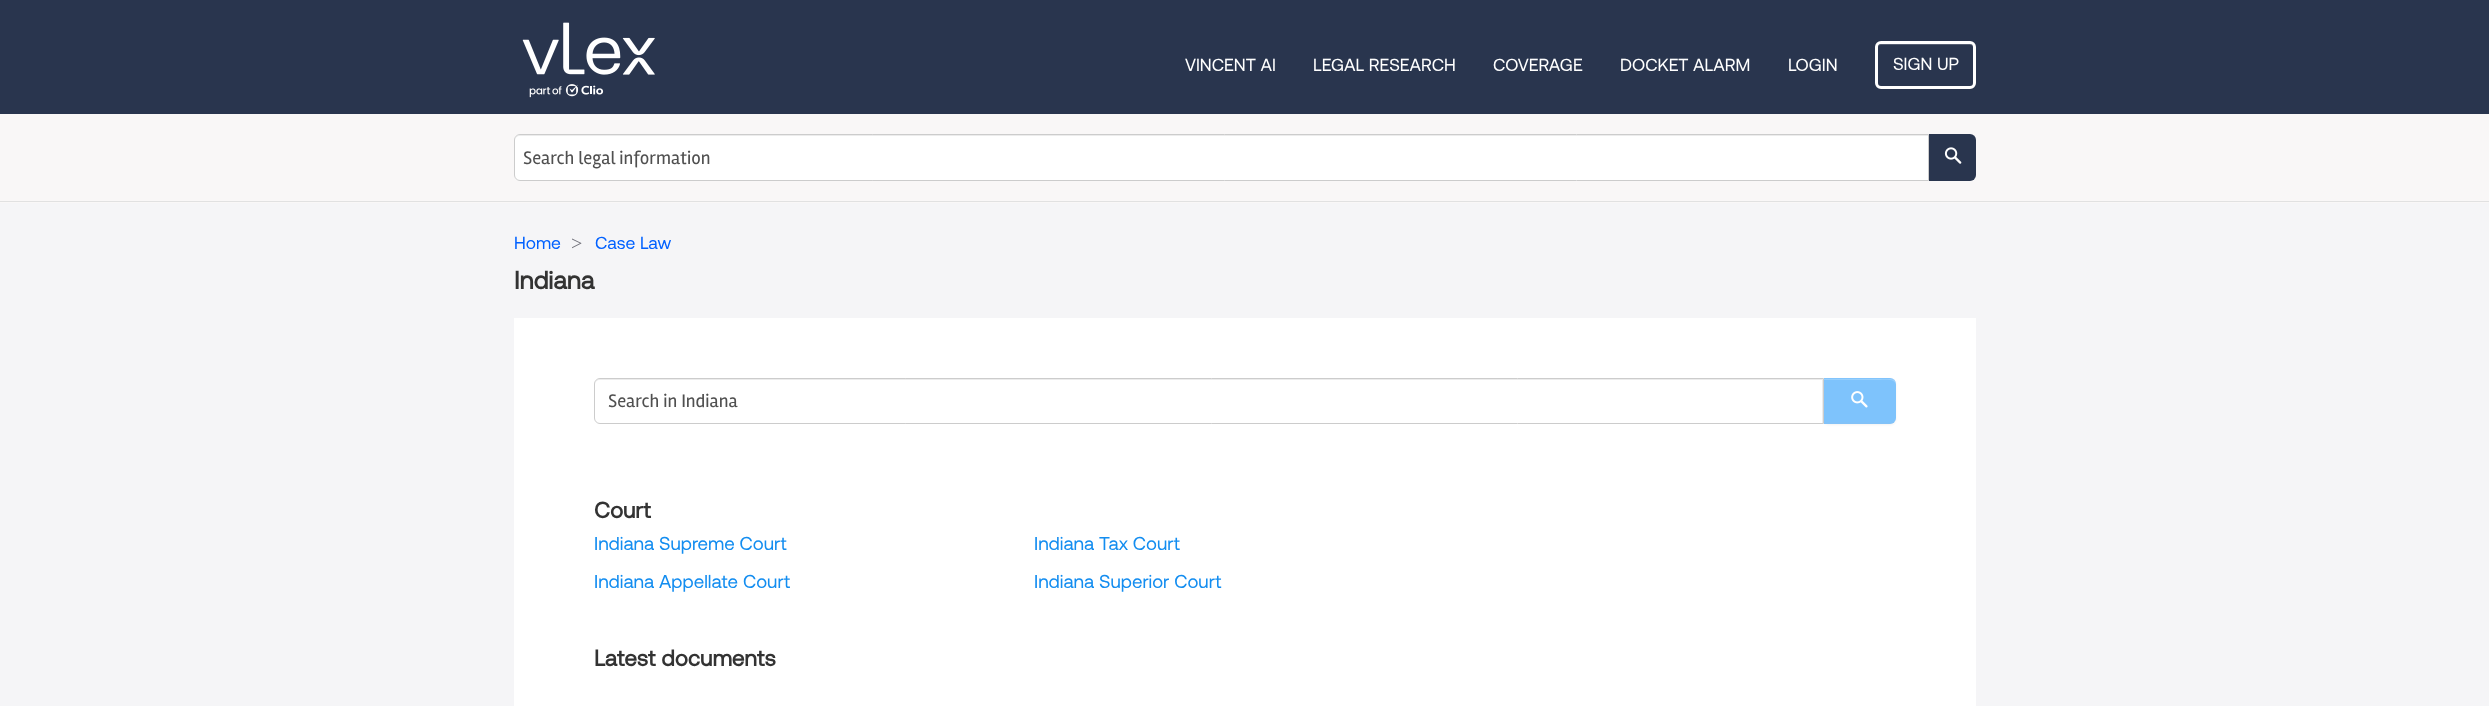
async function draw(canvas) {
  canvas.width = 2489
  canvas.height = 706
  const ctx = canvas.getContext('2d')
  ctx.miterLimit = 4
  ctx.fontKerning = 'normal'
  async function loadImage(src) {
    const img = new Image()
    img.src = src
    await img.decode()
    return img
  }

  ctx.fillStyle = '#f5f5f7'
  ctx.fillRect(0, 0, 2489, 706)
  ctx.fillStyle = '#29354e'
  ctx.fillRect(0, 0, 2489, 114)
  ctx.drawImage(await loadImage('image0.png'), 522, 22, 133, 76)
  ctx.font = '17.5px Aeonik'
  ctx.fillStyle = '#fff'
  ctx.fillText('VINCENT AI', 1185, 71)
  ctx.fillText('LEGAL RESEARCH', 1313, 71)
  ctx.fillText('COVERAGE', 1493, 71)
  ctx.fillText('DOCKET ALARM', 1620, 71)
  ctx.fillText('LOGIN', 1788, 71)
  ctx.fillStyle = '#545d71'
  ctx.beginPath()
  ctx.moveTo(1881, 45)
  ctx.lineTo(1970, 45)
  ctx.bezierCurveTo(1972, 45, 1974, 47, 1974, 49)
  ctx.bezierCurveTo(1974, 40, 1960, 44, 1955, 44)
  ctx.lineTo(1897, 44)
  ctx.bezierCurveTo(1892, 44, 1878, 40, 1878, 49)
  ctx.bezierCurveTo(1878, 47, 1879, 45, 1881, 45)
  ctx.closePath()
  ctx.fill()
  ctx.beginPath()
  ctx.roundRect(1876.5, 42.5, 98, 45, 4.5)
  ctx.strokeStyle = '#fff'
  ctx.lineWidth = 3
  ctx.stroke()
  ctx.fillStyle = '#fff'
  ctx.fillText('SIGN UP', 1893, 70)
  ctx.fillStyle = '#f9f7f7'
  ctx.fillRect(0, 114, 2489, 89)
  ctx.fillStyle = '#e1e1e1'
  ctx.fillRect(0, 201, 2489, 1)
  ctx.fillStyle = '#fff'
  ctx.beginPath()
  ctx.roundRect(514, 134, 1415, 47, [6, 0, 0, 6])
  ctx.fill()
  ctx.fillStyle = '#ececec'
  ctx.beginPath()
  ctx.moveTo(520, 136)
  ctx.lineTo(1928, 136)
  ctx.lineTo(1928, 135)
  ctx.lineTo(520, 135)
  ctx.bezierCurveTo(517, 135, 515, 138, 515, 141)
  ctx.bezierCurveTo(515, 138, 517, 136, 520, 136)
  ctx.closePath()
  ctx.fill()
  ctx.beginPath()
  ctx.roundRect(514.5, 134.5, 1414, 46, [5.5, 0, 0, 5.5])
  ctx.strokeStyle = '#ccc'
  ctx.lineWidth = 1
  ctx.stroke()
  ctx.font = '18.75px Rambla'
  ctx.fillStyle = '#505050'
  ctx.fillText('Search legal information', 523, 164)
  ctx.fillStyle = '#29354e'
  ctx.beginPath()
  ctx.roundRect(1929, 134, 47, 47, [0, 6, 6, 0])
  ctx.fill()
  ctx.drawImage(await loadImage('image1.png'), 1944, 147, 18, 17)
  ctx.font = '17.5px Aeonik'
  ctx.fillStyle = '#0161ff'
  ctx.fillText('Home', 514, 249)
  ctx.font = '20px Liberation Serif'
  ctx.fillStyle = '#71717a'
  ctx.fillText('>', 571, 250)
  ctx.font = '17.5px Aeonik'
  ctx.fillStyle = '#0161ff'
  ctx.fillText('Case Law', 595, 249)
  ctx.font = 'bold 25px Aeonik'
  ctx.fillStyle = '#333'
  ctx.fillText('Indiana', 514, 289)
  ctx.fillStyle = '#fff'
  ctx.fillRect(514, 318, 1462, 388)
  ctx.fillStyle = '#0000000d'
  ctx.filter = 'blur(1px)'
  ctx.beginPath()
  ctx.roundRect(1823, 379, 73, 46, 6)
  ctx.fill()
  ctx.filter = 'none'
  ctx.fillStyle = '#7ec3fc'
  ctx.beginPath()
  ctx.roundRect(1823, 378, 73, 46, [0, 6, 6, 0])
  ctx.fill()
  ctx.fillStyle = '#ffffff33'
  ctx.beginPath()
  ctx.moveTo(1822, 379)
  ctx.lineTo(1822, 380)
  ctx.lineTo(1879, 380)
  ctx.bezierCurveTo(1885, 380, 1896, 378, 1896, 386)
  ctx.bezierCurveTo(1896, 382, 1895, 379, 1890, 379)
  ctx.closePath()
  ctx.moveTo(1896, 391)
  ctx.lineTo(1896, 413)
  ctx.closePath()
  ctx.fill('evenodd')
  ctx.fillStyle = '#a8cbff1a'
  ctx.beginPath()
  ctx.moveTo(1822, 379)
  ctx.lineTo(1822, 378)
  ctx.lineTo(1890, 378)
  ctx.bezierCurveTo(1893, 378, 1896, 380, 1896, 383)
  ctx.bezierCurveTo(1895, 377, 1883, 379, 1879, 379)
  ctx.closePath()
  ctx.moveTo(1896, 401)
  ctx.lineTo(1896, 383)
  ctx.closePath()
  ctx.fill('evenodd')
  ctx.fillStyle = '#a4bddb1a'
  ctx.beginPath()
  ctx.moveTo(1892, 424)
  ctx.lineTo(1822, 424)
  ctx.lineTo(1822, 422)
  ctx.lineTo(1879, 422)
  ctx.bezierCurveTo(1883, 422, 1895, 424, 1896, 418)
  ctx.bezierCurveTo(1896, 420, 1894, 423, 1892, 424)
  ctx.closePath()
  ctx.moveTo(1896, 416)
  ctx.lineTo(1896, 418)
  ctx.lineTo(1896, 401)
  ctx.closePath()
  ctx.fill('evenodd')
  ctx.fillStyle = '#fff'
  ctx.beginPath()
  ctx.roundRect(594, 378, 1230, 46, [6, 0, 0, 6])
  ctx.fill()
  ctx.fillStyle = '#ececec'
  ctx.beginPath()
  ctx.moveTo(600, 380)
  ctx.lineTo(1822, 380)
  ctx.lineTo(1822, 423)
  ctx.lineTo(1823, 423)
  ctx.lineTo(1823, 379)
  ctx.lineTo(600, 379)
  ctx.bezierCurveTo(597, 379, 595, 382, 595, 385)
  ctx.bezierCurveTo(595, 382, 597, 380, 600, 380)
  ctx.closePath()
  ctx.fill()
  ctx.beginPath()
  ctx.roundRect(594.5, 378.5, 1229, 45, [5.5, 0, 0, 5.5])
  ctx.stroke()
  ctx.font = '18.75px Rambla'
  ctx.fillStyle = '#505050'
  ctx.fillText('Search in Indiana', 608, 407)
  ctx.drawImage(await loadImage('image2.png'), 1851, 391, 17, 17)
  ctx.font = 'bold 22.5px Aeonik'
  ctx.fillStyle = '#333'
  ctx.fillText('Court', 594, 518)
  ctx.font = '18.75px Aeonik'
  ctx.fillStyle = '#138df0'
  ctx.fillText('Indiana Supreme Court', 594, 550)
  ctx.fillText('Indiana Tax Court', 1034, 550)
  ctx.fillText('Indiana Appellate Court', 594, 588)
  ctx.fillText('Indiana Superior Court', 1034, 588)
  ctx.font = 'bold 22.5px Aeonik'
  ctx.fillStyle = '#333'
  ctx.fillText('Latest documents', 594, 666)
}

draw(document.querySelector('canvas'))
